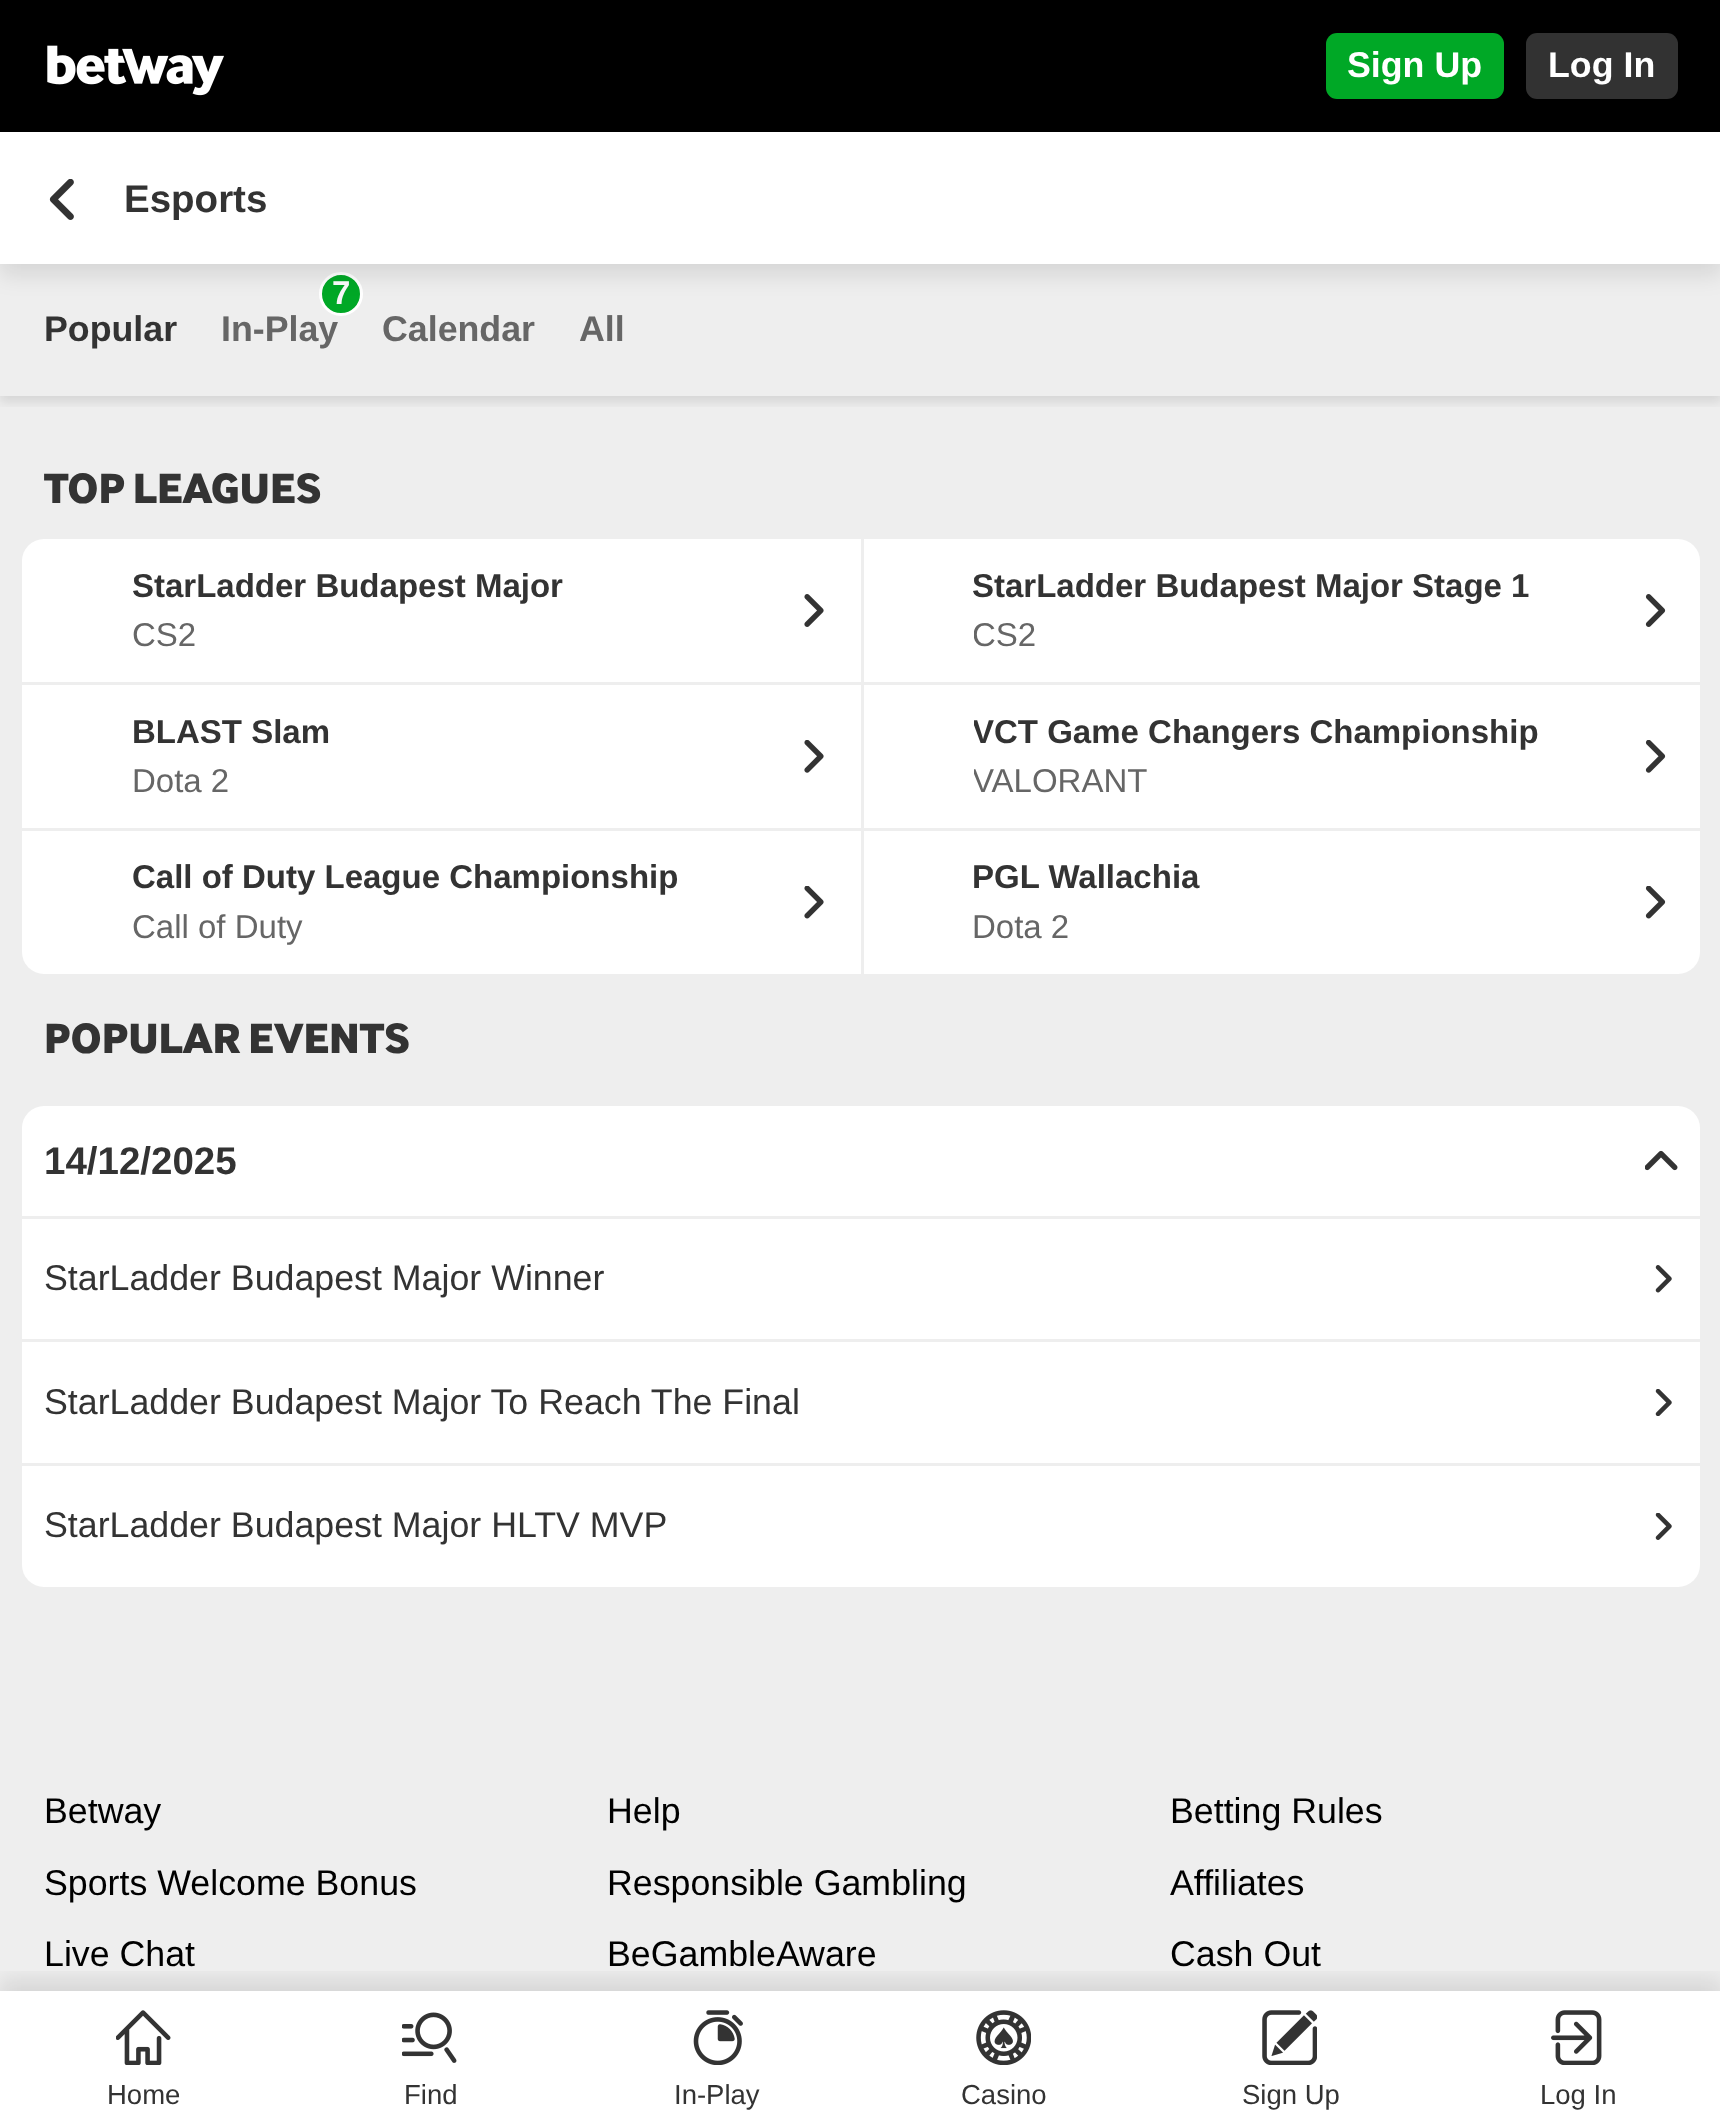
async function draw(canvas) {
  canvas.width = 1720
  canvas.height = 2121
  const ctx = canvas.getContext('2d')
  ctx.miterLimit = 4
  ctx.fontKerning = 'normal'
  async function loadImage(src) {
    const img = new Image()
    img.src = src
    await img.decode()
    return img
  }

  ctx.fillStyle = '#eee'
  ctx.fillRect(0, 0, 1720, 2121)
  ctx.fillStyle = '#000'
  ctx.fillRect(0, 0, 1720, 132)
  ctx.drawImage(await loadImage('image0.png'), 47, 45, 177, 51)
  ctx.fillStyle = '#00a826'
  ctx.beginPath()
  ctx.roundRect(1326, 33, 178, 66, 11)
  ctx.fill()
  ctx.font = 'bold 35.75px Liberation Sans'
  ctx.fillStyle = '#fff'
  ctx.fillText('Sign Up', 1347, 77)
  ctx.fillStyle = '#323232'
  ctx.beginPath()
  ctx.roundRect(1526, 33, 152, 66, 11)
  ctx.fill()
  ctx.fillStyle = '#fff'
  ctx.fillText('Log In', 1548, 77)
  ctx.save()
  ctx.beginPath()
  ctx.rect(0, 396, 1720, 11)
  ctx.clip()
  ctx.fillStyle = '#0000001a'
  ctx.filter = 'blur(5.5px)'
  ctx.beginPath()
  ctx.rect(0, 270, 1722, 132)
  ctx.fill()
  ctx.filter = 'none'
  ctx.restore()
  ctx.fillStyle = '#666'
  ctx.fillText('In-Play', 221, 341)
  ctx.fillStyle = '#00a826'
  ctx.beginPath()
  ctx.arc(341, 294, 20.5, 0, 2 * Math.PI)
  ctx.fill()
  ctx.strokeStyle = '#fff'
  ctx.lineWidth = 3
  ctx.stroke()
  ctx.fillStyle = '#0000001a'
  ctx.filter = 'blur(11px)'
  ctx.beginPath()
  ctx.rect(0, 143, 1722, 132)
  ctx.fill()
  ctx.filter = 'none'
  ctx.fillStyle = '#fff'
  ctx.fillRect(0, 132, 1720, 132)
  ctx.drawImage(await loadImage('image1.png'), 49, 179, 25, 41)
  ctx.font = 'bold 38.5px Liberation Sans'
  ctx.fillStyle = '#333'
  ctx.fillText('Esports', 124, 212)
  ctx.font = 'bold 35.75px Liberation Sans'
  ctx.fillText('Popular', 44, 341)
  ctx.font = 'bold 33px Liberation Sans'
  ctx.fillStyle = '#f6f6f6'
  ctx.fillText('7', 332, 304)
  ctx.font = 'bold 35.75px Liberation Sans'
  ctx.fillStyle = '#666'
  ctx.fillText('Calendar', 382, 341)
  ctx.fillText('All', 579, 341)
  ctx.font = 'bold 44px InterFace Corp'
  ctx.fillStyle = '#333'
  ctx.fillText('TOP LEAGUES', 44, 503)
  ctx.fillStyle = '#fff'
  ctx.beginPath()
  ctx.roundRect(22, 539, 839, 143, [22, 0, 0, 0])
  ctx.fill()
  ctx.font = 'bold 33px Liberation Sans'
  ctx.fillStyle = '#333'
  ctx.fillText('StarLadder Budapest Major', 132, 597)
  ctx.font = '33px Liberation Sans'
  ctx.fillStyle = '#666'
  ctx.fillText('CS2', 132, 646)
  ctx.drawImage(await loadImage('image2.png'), 804, 594, 20, 33)
  ctx.fillStyle = '#fff'
  ctx.beginPath()
  ctx.roundRect(864, 539, 836, 143, [0, 22, 0, 0])
  ctx.fill()
  ctx.font = 'bold 33px Liberation Sans'
  ctx.fillStyle = '#333'
  ctx.fillText('StarLadder Budapest Major Stage 1', 972, 597)
  ctx.save()
  ctx.beginPath()
  ctx.rect(974, 611, 643, 49)
  ctx.clip()
  ctx.font = '33px Liberation Sans'
  ctx.fillStyle = '#666'
  ctx.fillText('CS2', 972, 646)
  ctx.restore()
  ctx.drawImage(await loadImage('image3.png'), 1645, 594, 21, 33)
  ctx.fillStyle = '#fff'
  ctx.fillRect(22, 685, 839, 143)
  ctx.fillStyle = '#333'
  ctx.fillText('BLAST Slam', 132, 743)
  ctx.font = '33px Liberation Sans'
  ctx.fillStyle = '#666'
  ctx.fillText('Dota 2', 132, 792)
  ctx.drawImage(await loadImage('image4.png'), 804, 740, 20, 33)
  ctx.fillStyle = '#fff'
  ctx.fillRect(864, 685, 836, 143)
  ctx.save()
  ctx.beginPath()
  ctx.rect(974, 707, 643, 49)
  ctx.clip()
  ctx.font = 'bold 33px Liberation Sans'
  ctx.fillStyle = '#333'
  ctx.fillText('VCT Game Changers Championship', 972, 743)
  ctx.restore()
  ctx.save()
  ctx.beginPath()
  ctx.rect(974, 756, 643, 50)
  ctx.clip()
  ctx.fillStyle = '#666'
  ctx.fillText('VALORANT', 972, 792)
  ctx.restore()
  ctx.drawImage(await loadImage('image5.png'), 1645, 740, 21, 33)
  ctx.beginPath()
  ctx.roundRect(22, 831, 839, 143, [0, 0, 0, 22])
  ctx.fill()
  ctx.font = 'bold 33px Liberation Sans'
  ctx.fillStyle = '#333'
  ctx.fillText('Call of Duty League Championship', 132, 888)
  ctx.font = '33px Liberation Sans'
  ctx.fillStyle = '#666'
  ctx.fillText('Call of Duty', 132, 938)
  ctx.drawImage(await loadImage('image6.png'), 804, 886, 20, 33)
  ctx.fillStyle = '#fff'
  ctx.beginPath()
  ctx.roundRect(864, 831, 836, 143, [0, 0, 22, 0])
  ctx.fill()
  ctx.font = 'bold 33px Liberation Sans'
  ctx.fillStyle = '#333'
  ctx.fillText('PGL Wallachia', 972, 888)
  ctx.font = '33px Liberation Sans'
  ctx.fillStyle = '#666'
  ctx.fillText('Dota 2', 972, 938)
  ctx.drawImage(await loadImage('image7.png'), 1645, 886, 21, 33)
  ctx.font = 'bold 44px InterFace Corp'
  ctx.fillStyle = '#333'
  ctx.fillText('POPULAR EVENTS', 44, 1053)
  ctx.fillStyle = '#fff'
  ctx.beginPath()
  ctx.roundRect(22, 1106, 1678, 112, [22, 22, 0, 0])
  ctx.fill()
  ctx.fillStyle = '#eee'
  ctx.fillRect(22, 1216, 1678, 2)
  ctx.font = 'bold 38.5px Liberation Sans'
  ctx.fillStyle = '#333'
  ctx.fillText('14/12/2025', 44, 1174)
  ctx.drawImage(await loadImage('image8.png'), 1645, 1150, 33, 21)
  ctx.fillStyle = '#fff'
  ctx.fillRect(22, 1219, 1678, 120)
  ctx.font = '35.75px Liberation Sans'
  ctx.fillStyle = '#333'
  ctx.fillText('StarLadder Budapest Major Winner', 44, 1290)
  ctx.drawImage(await loadImage('image9.png'), 1655, 1265, 17, 28)
  ctx.fillStyle = '#fff'
  ctx.fillRect(22, 1342, 1678, 121)
  ctx.fillStyle = '#333'
  ctx.fillText('StarLadder Budapest Major To Reach The Final', 44, 1414)
  ctx.drawImage(await loadImage('image10.png'), 1655, 1389, 17, 27)
  ctx.fillStyle = '#fff'
  ctx.beginPath()
  ctx.roundRect(22, 1463, 1678, 124, [0, 0, 22, 22])
  ctx.fill()
  ctx.fillStyle = '#eee'
  ctx.fillRect(22, 1463, 1678, 3)
  ctx.fillStyle = '#333'
  ctx.fillText('StarLadder Budapest Major HLTV MVP', 44, 1537)
  ctx.drawImage(await loadImage('image11.png'), 1655, 1513, 17, 27)
  ctx.fillStyle = '#000'
  ctx.fillText('Betway', 44, 1823)
  ctx.fillText('Help', 607, 1823)
  ctx.fillText('Betting Rules', 1170, 1823)
  ctx.fillText('Sports Welcome Bonus', 44, 1895)
  ctx.fillText('Responsible Gambling', 607, 1895)
  ctx.fillText('Affiliates', 1170, 1895)
  ctx.fillText('Live Chat', 44, 1966)
  ctx.fillText('BeGambleAware', 607, 1966)
  ctx.fillText('Cash Out', 1170, 1966)
  ctx.fillStyle = '#fff'
  ctx.fillRect(0, 1991, 1720, 130)
  ctx.save()
  ctx.beginPath()
  ctx.rect(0, 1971, 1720, 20)
  ctx.clip()
  ctx.fillStyle = '#0000001a'
  ctx.filter = 'blur(11px)'
  ctx.beginPath()
  ctx.rect(0, 1980, 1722, 132)
  ctx.fill()
  ctx.filter = 'none'
  ctx.restore()
  ctx.drawImage(await loadImage('image12.png'), 116, 2010, 55, 55)
  ctx.font = '27.5px Liberation Sans'
  ctx.fillStyle = '#333'
  ctx.fillText('Home', 107, 2104)
  ctx.drawImage(await loadImage('image13.png'), 402, 2012, 55, 51)
  ctx.fillText('Find', 404, 2104)
  ctx.drawImage(await loadImage('image14.png'), 693, 2010, 50, 55)
  ctx.fillText('In-Play', 674, 2104)
  ctx.drawImage(await loadImage('image15.png'), 976, 2010, 55, 55)
  ctx.fillText('Casino', 961, 2104)
  ctx.drawImage(await loadImage('image16.png'), 1262, 2010, 55, 55)
  ctx.fillText('Sign Up', 1242, 2104)
  ctx.drawImage(await loadImage('image17.png'), 1551, 2010, 51, 55)
  ctx.fillText('Log In', 1540, 2104)
}

draw(document.querySelector('canvas'))
